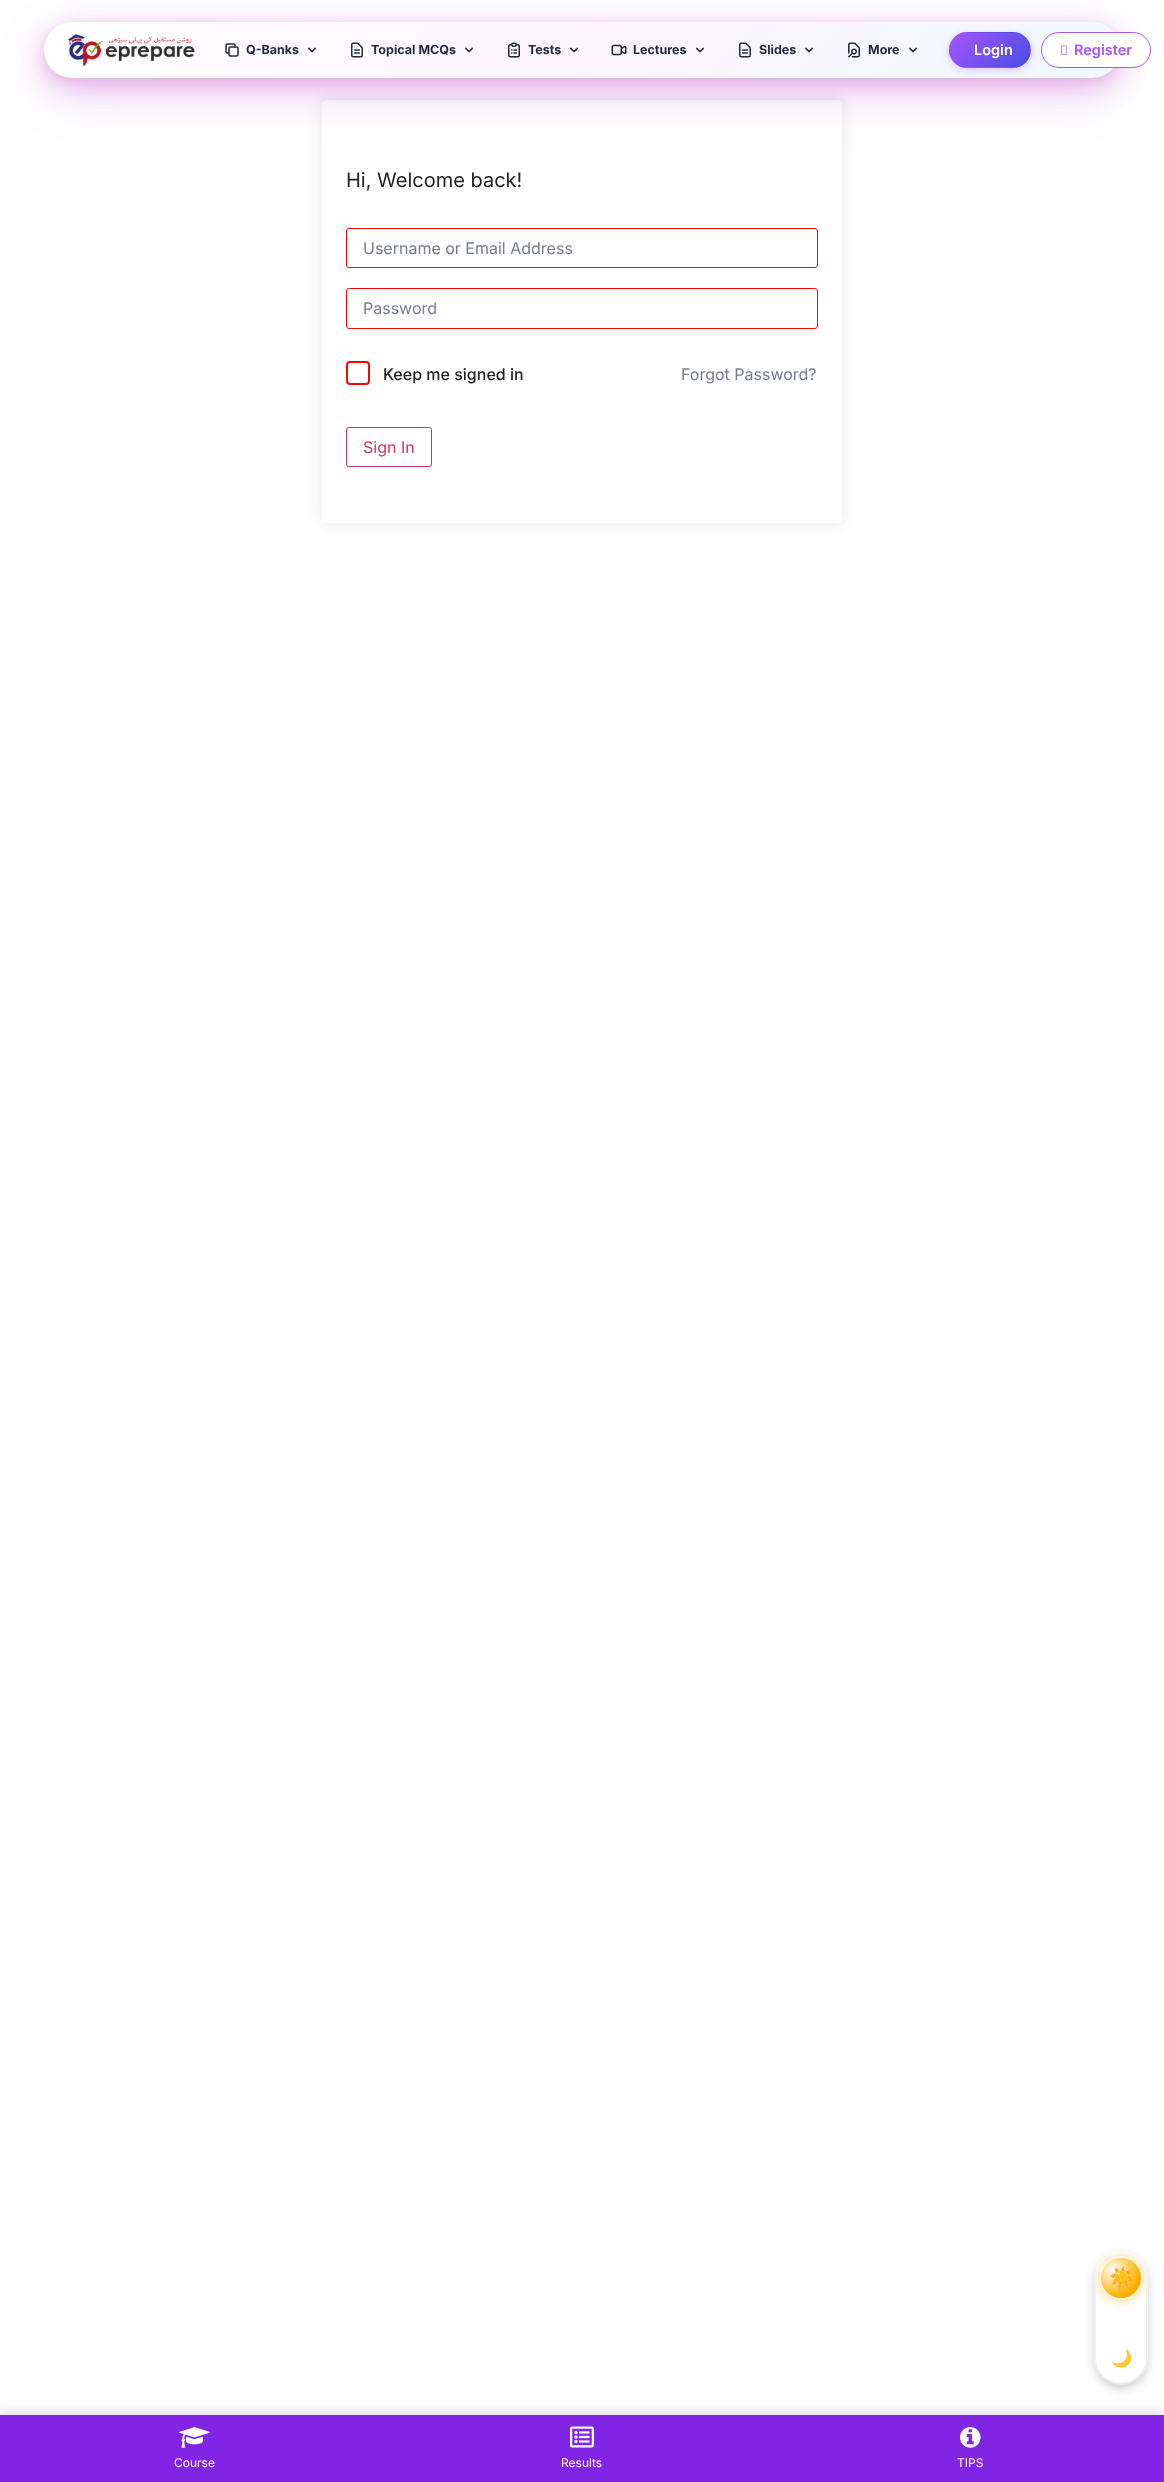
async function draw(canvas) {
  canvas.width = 1164
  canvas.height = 2482
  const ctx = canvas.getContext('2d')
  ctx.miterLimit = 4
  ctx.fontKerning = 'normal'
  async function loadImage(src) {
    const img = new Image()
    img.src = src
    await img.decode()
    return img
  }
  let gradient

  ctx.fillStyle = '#fff'
  ctx.fillRect(0, 0, 1164, 2482)
  ctx.fillStyle = '#9333ea29'
  ctx.filter = 'blur(7px)'
  ctx.beginPath()
  ctx.roundRect(44, 26, 1076, 56, 28)
  ctx.fill()
  ctx.filter = 'none'
  ctx.fillStyle = '#a855f738'
  ctx.filter = 'blur(24px)'
  ctx.beginPath()
  ctx.roundRect(44, 38, 1076, 56, 28)
  ctx.fill()
  ctx.filter = 'none'
  ctx.fillStyle = '#ec489942'
  ctx.filter = 'blur(14px)'
  ctx.beginPath()
  ctx.roundRect(44, 30, 1076, 56, 28)
  ctx.fill()
  ctx.filter = 'none'
  ctx.save()
  ctx.beginPath()
  ctx.moveTo(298, 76)
  ctx.lineTo(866, 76)
  ctx.lineTo(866, 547)
  ctx.lineTo(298, 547)
  ctx.closePath()
  ctx.moveTo(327, 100)
  ctx.lineTo(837, 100)
  ctx.bezierCurveTo(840, 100, 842, 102, 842, 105)
  ctx.lineTo(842, 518)
  ctx.bezierCurveTo(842, 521, 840, 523, 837, 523)
  ctx.lineTo(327, 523)
  ctx.bezierCurveTo(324, 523, 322, 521, 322, 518)
  ctx.lineTo(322, 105)
  ctx.bezierCurveTo(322, 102, 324, 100, 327, 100)
  ctx.closePath()
  ctx.clip('evenodd')
  ctx.fillStyle = '#0000001a'
  ctx.filter = 'blur(7.5px)'
  ctx.beginPath()
  ctx.roundRect(322, 100, 520, 423, 5)
  ctx.fill()
  ctx.filter = 'none'
  ctx.restore()
  gradient = ctx.createLinearGradient(299, -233, 865, 333)
  gradient.addColorStop(0, '#fff')
  gradient.addColorStop(0.5, '#fdf4ff')
  gradient.addColorStop(1, '#f0f9ff')
  ctx.fillStyle = gradient
  ctx.beginPath()
  ctx.roundRect(44, 22, 1076, 56, 28)
  ctx.fill()
  ctx.drawImage(await loadImage('image0.png'), 68, 34, 127, 32)
  ctx.drawImage(await loadImage('image1.png'), 225, 43, 14, 14)
  ctx.font = 'bold 12.5px Inter'
  ctx.fillStyle = '#1e293b'
  ctx.fillText('Q-Banks', 246, 54)
  ctx.drawImage(await loadImage('image2.png'), 308, 47, 8, 6)
  ctx.drawImage(await loadImage('image3.png'), 351, 42, 12, 16)
  ctx.fillText('Topical MCQs', 371, 54)
  ctx.drawImage(await loadImage('image4.png'), 465, 47, 8, 6)
  ctx.drawImage(await loadImage('image5.png'), 508, 42, 12, 16)
  ctx.fillText('Tests', 528, 54)
  ctx.drawImage(await loadImage('image6.png'), 570, 47, 8, 6)
  ctx.drawImage(await loadImage('image7.png'), 611, 44, 16, 12)
  ctx.fillText('Lectures', 633, 54)
  ctx.drawImage(await loadImage('image8.png'), 696, 47, 8, 6)
  ctx.drawImage(await loadImage('image9.png'), 739, 42, 12, 16)
  ctx.fillText('Slides', 759, 54)
  ctx.drawImage(await loadImage('image10.png'), 805, 47, 8, 6)
  ctx.drawImage(await loadImage('image11.png'), 848, 42, 12, 16)
  ctx.fillText('More', 868, 54)
  ctx.drawImage(await loadImage('image12.png'), 909, 47, 8, 6)
  ctx.fillStyle = '#a655f74d'
  ctx.filter = 'blur(4px)'
  ctx.beginPath()
  ctx.roundRect(949, 34, 82, 36, 18)
  ctx.fill()
  ctx.filter = 'none'
  ctx.save()
  ctx.beginPath()
  ctx.roundRect(949, 32, 82, 36, 18)
  ctx.clip()
  gradient = ctx.createLinearGradient(962, -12, 1019, 45)
  gradient.addColorStop(0, '#a655f7')
  gradient.addColorStop(1, '#474ce6')
  ctx.fillStyle = gradient
  ctx.fillRect(961, 32, 58, 1)
  gradient = ctx.createLinearGradient(882, 22, 939, 79)
  gradient.addColorStop(0, '#a655f7')
  gradient.addColorStop(1, '#474ce6')
  ctx.fillStyle = gradient
  ctx.fillRect(949, 44, 1, 12)
  gradient = ctx.createLinearGradient(962, 22, 1019, 79)
  gradient.addColorStop(0, '#a655f7')
  gradient.addColorStop(1, '#474ce6')
  ctx.fillStyle = gradient
  ctx.fillRect(950, 33, 80, 34)
  gradient = ctx.createLinearGradient(1042, 22, 1099, 79)
  gradient.addColorStop(0, '#a655f7')
  gradient.addColorStop(1, '#474ce6')
  ctx.fillStyle = gradient
  ctx.fillRect(1030, 44, 1, 12)
  gradient = ctx.createLinearGradient(962, 56, 1019, 113)
  gradient.addColorStop(0, '#a655f7')
  gradient.addColorStop(1, '#474ce6')
  ctx.fillStyle = gradient
  ctx.fillRect(961, 67, 58, 1)
  ctx.restore()
  ctx.font = '600 14.5px Inter'
  ctx.fillStyle = '#fff'
  ctx.fillText('Login', 974, 55)
  ctx.beginPath()
  ctx.roundRect(1041.5, 32.5, 109, 35, 17.5)
  ctx.fill()
  ctx.strokeStyle = '#a655f7'
  ctx.stroke()
  ctx.drawImage(await loadImage('image13.png'), 1061, 45, 6, 10)
  ctx.fillStyle = '#a655f7'
  ctx.fillText('Register', 1074, 55)
  ctx.font = '20px Inter'
  ctx.fillStyle = '#212327'
  ctx.fillText('Hi, Welcome back!', 346, 187)
  ctx.beginPath()
  ctx.roundRect(346.5, 228.5, 471, 39, 2.5)
  ctx.strokeStyle = '#f70808'
  ctx.stroke()
  ctx.font = '16px Inter'
  ctx.fillStyle = '#757c8e'
  ctx.fillText('Username or Email Address', 363, 254)
  ctx.beginPath()
  ctx.roundRect(346.5, 288.5, 471, 40, 2.5)
  ctx.stroke()
  ctx.fillText('Password', 363, 314)
  ctx.beginPath()
  ctx.roundRect(347, 362, 22, 22, 3)
  ctx.lineWidth = 2
  ctx.stroke()
  ctx.font = '500 16px Inter'
  ctx.fillStyle = '#212327'
  ctx.fillText('Keep me signed in', 383, 380)
  ctx.font = '16px Inter'
  ctx.fillStyle = '#757c8e'
  ctx.fillText('Forgot Password?', 681, 380)
  ctx.beginPath()
  ctx.roundRect(346.5, 427.5, 85, 39, 2.5)
  ctx.strokeStyle = '#c36'
  ctx.lineWidth = 1
  ctx.stroke()
  ctx.fillStyle = '#c36'
  ctx.fillText('Sign In', 363, 453)
  ctx.save()
  ctx.beginPath()
  ctx.moveTo(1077, 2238)
  ctx.lineTo(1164, 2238)
  ctx.lineTo(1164, 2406)
  ctx.lineTo(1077, 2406)
  ctx.closePath()
  ctx.moveTo(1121, 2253)
  ctx.bezierCurveTo(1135, 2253, 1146, 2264, 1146, 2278)
  ctx.lineTo(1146, 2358)
  ctx.bezierCurveTo(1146, 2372, 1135, 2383, 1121, 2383)
  ctx.bezierCurveTo(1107, 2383, 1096, 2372, 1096, 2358)
  ctx.lineTo(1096, 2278)
  ctx.bezierCurveTo(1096, 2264, 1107, 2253, 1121, 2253)
  ctx.closePath()
  ctx.clip('evenodd')
  ctx.fillStyle = '#00000040'
  ctx.filter = 'blur(6px)'
  ctx.beginPath()
  ctx.roundRect(1096, 2257, 50, 130, 25)
  ctx.fill()
  ctx.filter = 'none'
  ctx.restore()
  ctx.fillStyle = '#ffffff59'
  ctx.beginPath()
  ctx.roundRect(1096, 2253, 50, 130, 25)
  ctx.fill()
  ctx.beginPath()
  ctx.roundRect(1095, 2252, 52, 132, 26)
  ctx.strokeStyle = '#ffffff73'
  ctx.lineWidth = 2
  ctx.stroke()
  ctx.save()
  ctx.beginPath()
  ctx.roundRect(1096, 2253, 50, 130, 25)
  ctx.clip()
  ctx.fillStyle = '#ffb200b3'
  ctx.filter = 'blur(7px)'
  ctx.beginPath()
  ctx.roundRect(1101, 2258, 40, 40, 20)
  ctx.fill()
  ctx.filter = 'none'
  ctx.restore()
  ctx.beginPath()
  ctx.arc(1121, 2278, 21, 0, 2 * Math.PI)
  ctx.strokeStyle = '#ffffff99'
  ctx.stroke()
  gradient = ctx.createRadialGradient(1113, 2270, 0, 1113, 2270, 40)
  gradient.addColorStop(0, '#fff')
  gradient.addColorStop(0.65, '#ffb200')
  gradient.addColorStop(1, '#e89400')
  ctx.fillStyle = gradient
  ctx.beginPath()
  ctx.arc(1121, 2278, 20, 0, 2 * Math.PI)
  ctx.fill()
  ctx.font = '20px Noto Color Emoji'
  ctx.fillStyle = '#fff'
  ctx.fillText('☀️', 1109, 2285)
  ctx.font = '17px Noto Color Emoji'
  ctx.fillStyle = '#353434'
  ctx.fillText('☀️', 1111, 2282)
  ctx.fillText('🌙', 1111, 2364)
  ctx.fillStyle = '#0000001a'
  ctx.filter = 'blur(5px)'
  ctx.beginPath()
  ctx.rect(0, 2410, 1164, 67)
  ctx.fill()
  ctx.filter = 'none'
  ctx.fillStyle = '#8224e3'
  ctx.fillRect(0, 2415, 1164, 67)
  ctx.drawImage(await loadImage('image14.png'), 179, 2427, 31, 21)
  ctx.font = '12px Inter'
  ctx.fillStyle = '#fff'
  ctx.fillText('Course', 174, 2467)
  ctx.drawImage(await loadImage('image15.png'), 570, 2426, 24, 22)
  ctx.fillText('Results', 561, 2467)
  ctx.drawImage(await loadImage('image16.png'), 960, 2427, 21, 21)
  ctx.fillText('TIPS', 957, 2467)
}

draw(document.querySelector('canvas'))
